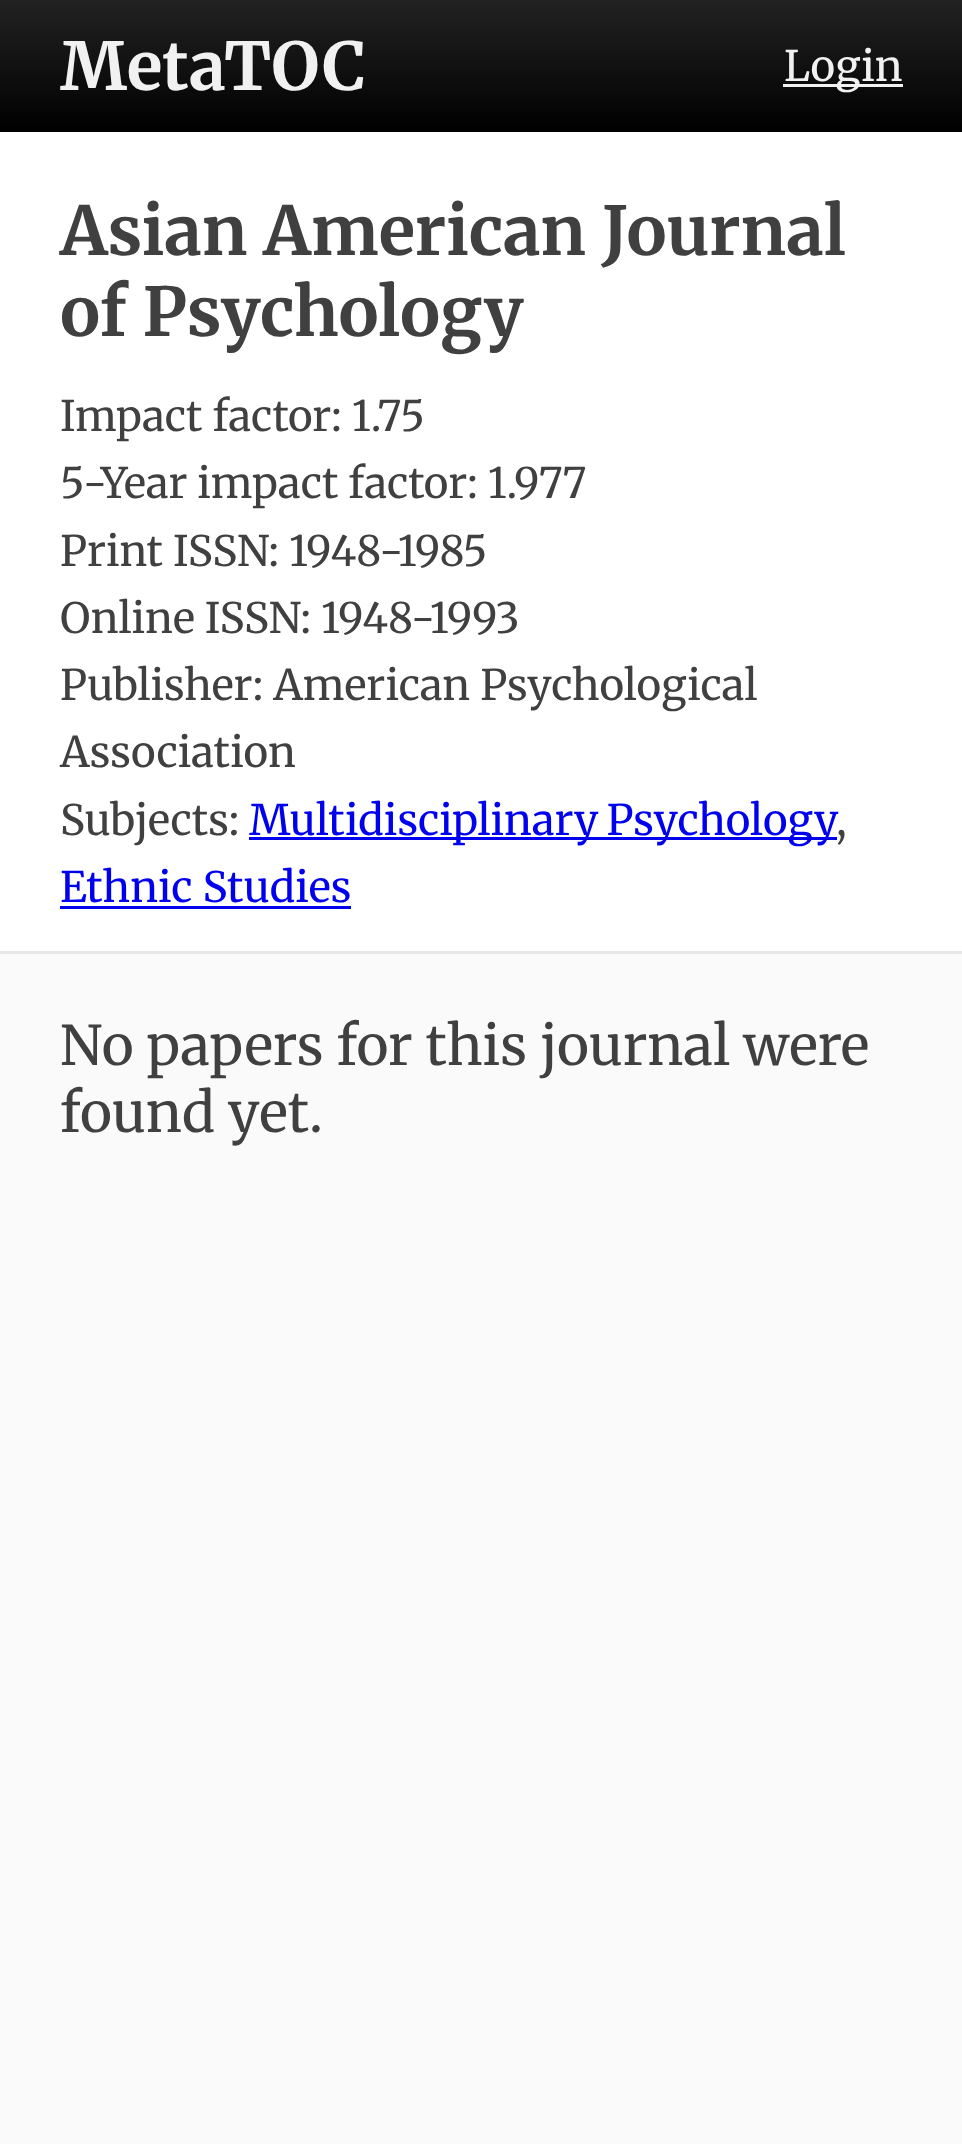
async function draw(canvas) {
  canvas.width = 962
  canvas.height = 2144
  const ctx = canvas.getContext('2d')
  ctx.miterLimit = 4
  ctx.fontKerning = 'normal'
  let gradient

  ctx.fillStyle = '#fafafa'
  ctx.fillRect(0, 0, 962, 2144)
  gradient = ctx.createLinearGradient(482, 0, 482, 132)
  gradient.addColorStop(0, '#222')
  gradient.addColorStop(1, '#000')
  ctx.fillStyle = gradient
  ctx.fillRect(0, 0, 962, 132)
  ctx.font = 'bold 66px Merriweather'
  ctx.fillStyle = '#f1f1f1'
  ctx.fillText('MetaTOC', 60, 90)
  ctx.fillRect(783, 84, 120, 3)
  ctx.font = '42px Merriweather'
  ctx.fillText('Login', 784, 81)
  ctx.fillStyle = '#fff'
  ctx.fillRect(0, 132, 962, 819)
  ctx.fillStyle = '#e6e6e6'
  ctx.fillRect(0, 951, 962, 3)
  ctx.font = 'bold 67.25px Merriweather'
  ctx.fillStyle = '#404040'
  ctx.fillText('Asian American Journal', 60, 255)
  ctx.fillText('of Psychology', 60, 336)
  ctx.font = '42px Merriweather'
  ctx.fillText('Impact factor: 1.75', 60, 431)
  ctx.fillText('5-Year impact factor: 1.977', 60, 498)
  ctx.fillText('Print ISSN: 1948-1985', 60, 566)
  ctx.fillText('Online ISSN: 1948-1993', 60, 633)
  ctx.fillText('Publisher: American Psychological', 60, 700)
  ctx.fillText('Association', 60, 767)
  ctx.fillText('Subjects:', 60, 835)
  ctx.fillStyle = '#00e'
  ctx.fillRect(249, 837, 588, 3)
  ctx.wordSpacing = '-2px'
  ctx.fillText('Multidisciplinary Psychology', 249, 835)
  ctx.wordSpacing = '0px'
  ctx.fillStyle = '#404040'
  ctx.fillText(',', 836, 835)
  ctx.fillStyle = '#00e'
  ctx.fillText('Ethnic Studies', 60, 902)
  ctx.fillRect(60, 906, 291, 3)
  ctx.font = '54.6px Merriweather'
  ctx.fillStyle = '#404040'
  ctx.fillText('No papers for this journal were', 60, 1065)
  ctx.fillText('found yet.', 60, 1132)
}

draw(document.querySelector('canvas'))
